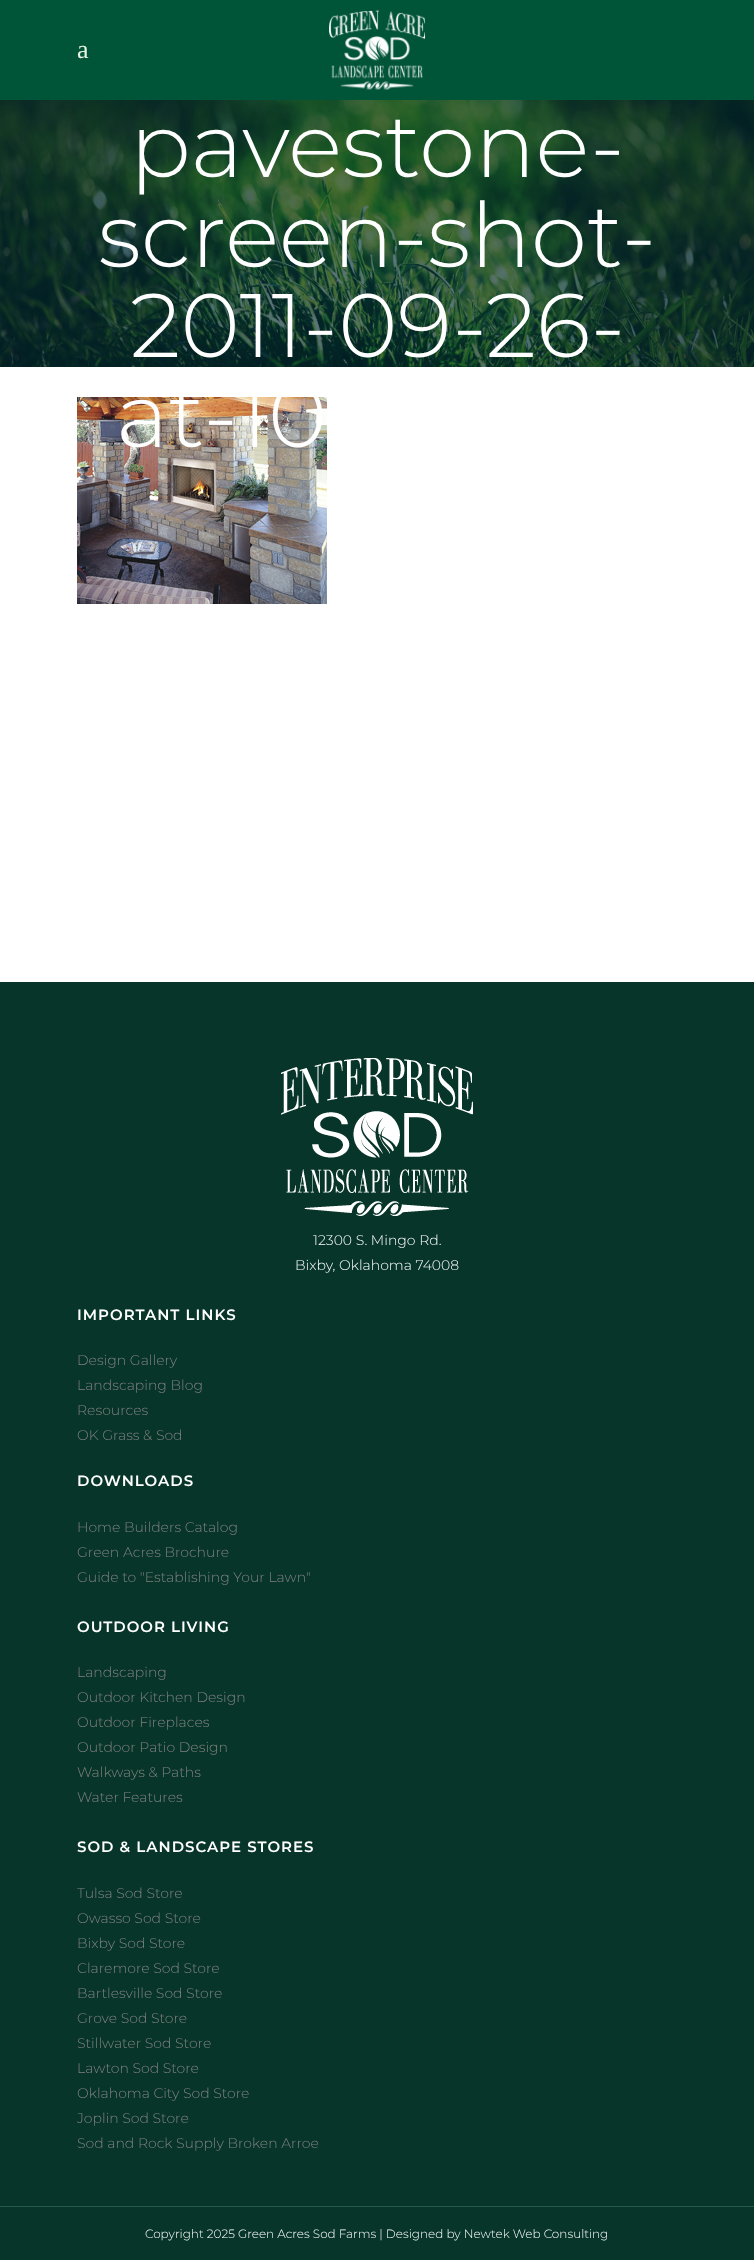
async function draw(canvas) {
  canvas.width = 754
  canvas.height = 2260
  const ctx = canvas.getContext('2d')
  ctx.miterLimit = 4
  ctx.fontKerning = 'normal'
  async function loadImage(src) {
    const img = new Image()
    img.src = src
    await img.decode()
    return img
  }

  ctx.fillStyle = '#fff'
  ctx.fillRect(0, 0, 754, 2260)
  ctx.fillStyle = '#005438'
  ctx.fillRect(0, 0, 754, 100)
  ctx.font = '26px Liberation Serif'
  ctx.fillStyle = '#e8f4e4'
  ctx.fillText('a', 77, 58)
  ctx.drawImage(await loadImage('image0.png'), 329, 10, 97, 80)
  ctx.drawImage(await loadImage('image1.png'), 0, 100, 754, 267)
  ctx.font = '300 90px Montserrat'
  ctx.fillStyle = '#fff'
  ctx.fillText('pavestone-', 130, 177)
  ctx.fillText('screen-shot-', 98, 267)
  ctx.fillText('2011-09-26-', 130, 357)
  ctx.drawImage(await loadImage('image2.png'), 77, 397, 250, 207)
  ctx.fillText('at-10', 116, 447)
  ctx.fillStyle = '#073529'
  ctx.fillRect(0, 982, 754, 1224)
  ctx.drawImage(await loadImage('image3.png'), 281, 1058, 192, 158)
  ctx.font = '300 14px Montserrat'
  ctx.fillStyle = '#fff'
  ctx.fillText('12300 S. Mingo Rd.', 313, 1245)
  ctx.fillText('Bixby, Oklahoma 74008', 295, 1270)
  ctx.letterSpacing = '1px'
  ctx.font = '600 15px Montserrat'
  ctx.fillText('IMPORTANT LINKS', 77, 1320)
  ctx.letterSpacing = '0px'
  ctx.font = '300 14px Montserrat'
  ctx.fillStyle = '#818181'
  ctx.fillText('Design Gallery', 77, 1365)
  ctx.fillText('Landscaping Blog', 77, 1390)
  ctx.fillText('Resources', 77, 1415)
  ctx.fillText('OK Grass & Sod', 77, 1440)
  ctx.letterSpacing = '1px'
  ctx.font = '600 15px Montserrat'
  ctx.fillStyle = '#fff'
  ctx.fillText('DOWNLOADS', 77, 1486)
  ctx.letterSpacing = '0px'
  ctx.font = '300 14px Montserrat'
  ctx.fillStyle = '#818181'
  ctx.fillText('Home Builders Catalog', 77, 1532)
  ctx.fillText('Green Acres Brochure', 77, 1557)
  ctx.fillText('Guide to "Establishing Your Lawn"', 77, 1582)
  ctx.letterSpacing = '1px'
  ctx.font = '600 15px Montserrat'
  ctx.fillStyle = '#fff'
  ctx.fillText('OUTDOOR LIVING', 77, 1632)
  ctx.letterSpacing = '0px'
  ctx.font = '300 14px Montserrat'
  ctx.fillStyle = '#818181'
  ctx.fillText('Landscaping', 77, 1677)
  ctx.fillText('Outdoor Kitchen Design', 77, 1702)
  ctx.fillText('Outdoor Fireplaces', 77, 1727)
  ctx.fillText('Outdoor Patio Design', 77, 1752)
  ctx.fillText('Walkways & Paths', 77, 1777)
  ctx.fillText('Water Features', 77, 1802)
  ctx.letterSpacing = '1px'
  ctx.font = '600 15px Montserrat'
  ctx.fillStyle = '#fff'
  ctx.fillText('SOD & LANDSCAPE STORES', 77, 1852)
  ctx.letterSpacing = '0px'
  ctx.font = '300 14px Montserrat'
  ctx.fillStyle = '#818181'
  ctx.fillText('Tulsa Sod Store', 77, 1898)
  ctx.fillText('Owasso Sod Store', 77, 1923)
  ctx.fillText('Bixby Sod Store', 77, 1948)
  ctx.fillText('Claremore Sod Store', 77, 1973)
  ctx.fillText('Bartlesville Sod Store', 77, 1998)
  ctx.fillText('Grove Sod Store', 77, 2023)
  ctx.fillText('Stillwater Sod Store', 77, 2048)
  ctx.fillText('Lawton Sod Store', 77, 2073)
  ctx.fillText('Oklahoma City Sod Store', 77, 2098)
  ctx.fillText('Joplin Sod Store', 77, 2123)
  ctx.fillText('Sod and Rock Supply Broken Arroe', 77, 2148)
  ctx.fillStyle = '#073529'
  ctx.fillRect(0, 2207, 754, 53)
  ctx.fillStyle = '#235b48'
  ctx.fillRect(0, 2206, 754, 1)
  ctx.font = '300 12px Montserrat'
  ctx.fillStyle = '#fff'
  ctx.fillText('Copyright 2025 Green Acres Sod Farms | Designed by Newtek Web Consulting', 145, 2238)
}

draw(document.querySelector('canvas'))
